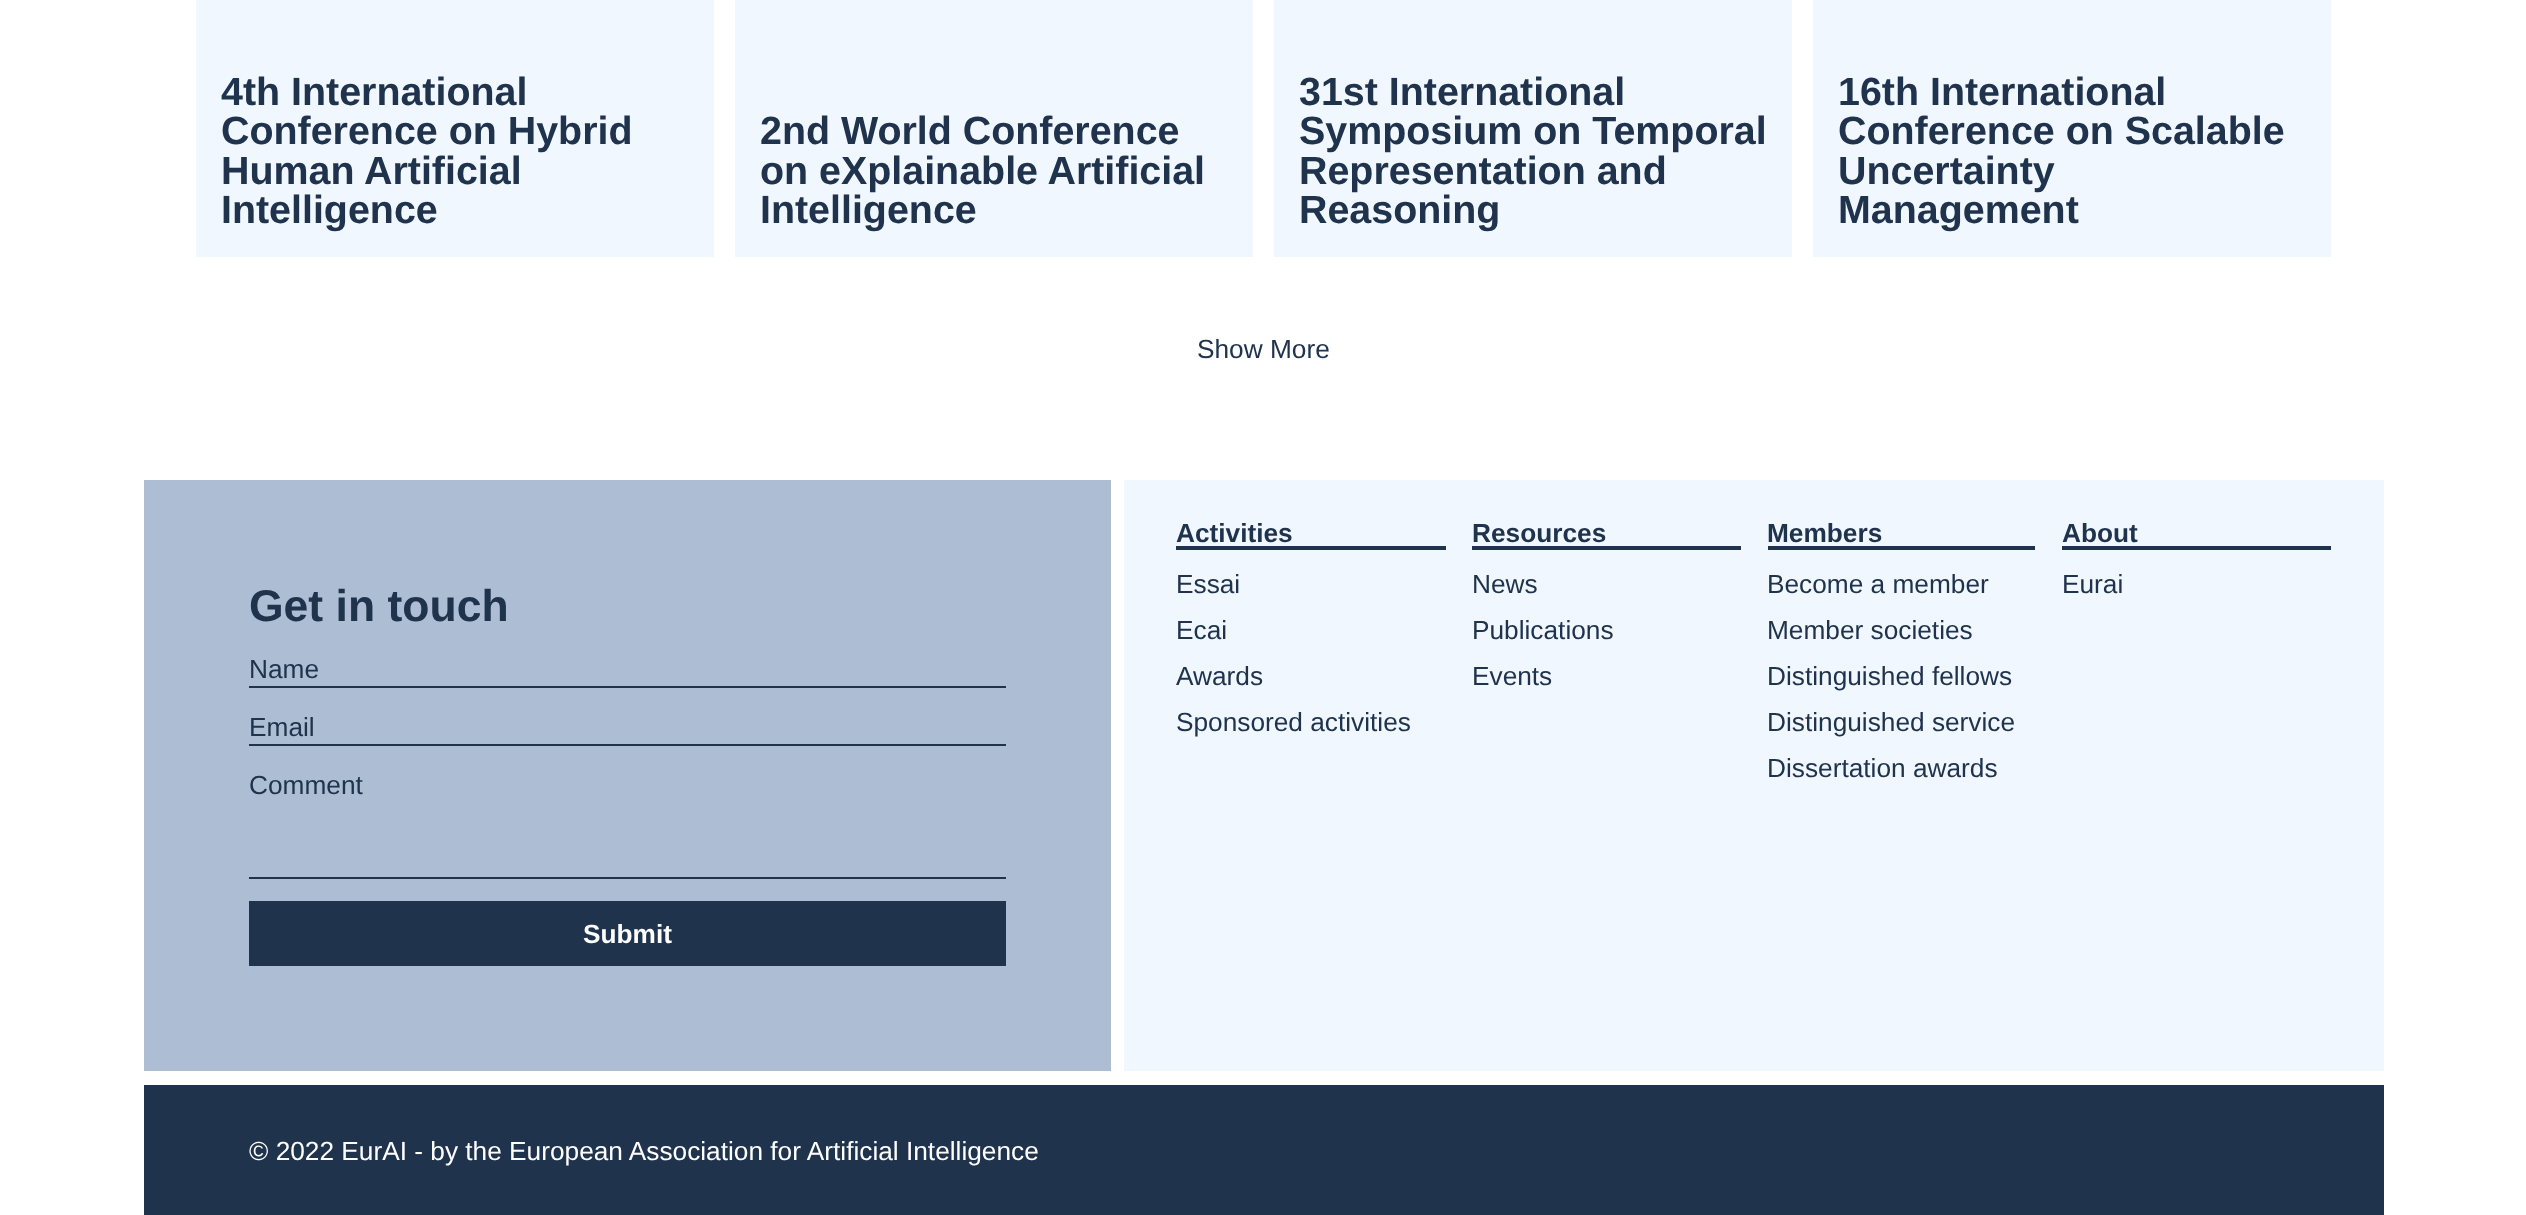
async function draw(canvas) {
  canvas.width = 2526
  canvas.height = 1215
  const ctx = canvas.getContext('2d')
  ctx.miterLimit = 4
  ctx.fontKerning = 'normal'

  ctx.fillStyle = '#fff'
  ctx.fillRect(0, 0, 2526, 1215)
  ctx.fillStyle = '#f0f7ff'
  ctx.fillRect(196, 0, 518, 257)
  ctx.font = 'bold 39.4px Liberation Sans'
  ctx.fillStyle = '#20334d'
  ctx.fillText('4th International', 221, 105)
  ctx.fillText('Conference on Hybrid', 221, 144)
  ctx.fillText('Human Artificial', 221, 184)
  ctx.fillText('Intelligence', 221, 223)
  ctx.fillStyle = '#f0f7ff'
  ctx.fillRect(735, 0, 518, 257)
  ctx.fillStyle = '#20334d'
  ctx.fillText('2nd World Conference', 760, 144)
  ctx.fillText('on eXplainable Artificial', 760, 184)
  ctx.fillText('Intelligence', 760, 223)
  ctx.fillStyle = '#f0f7ff'
  ctx.fillRect(1274, 0, 518, 257)
  ctx.fillStyle = '#20334d'
  ctx.fillText('31st International', 1299, 105)
  ctx.fillText('Symposium on Temporal', 1299, 144)
  ctx.fillText('Representation and', 1299, 184)
  ctx.fillText('Reasoning', 1299, 223)
  ctx.fillStyle = '#f0f7ff'
  ctx.fillRect(1813, 0, 518, 257)
  ctx.fillStyle = '#20334d'
  ctx.fillText('16th International', 1838, 105)
  ctx.fillText('Conference on Scalable', 1838, 144)
  ctx.fillText('Uncertainty', 1838, 184)
  ctx.fillText('Management', 1838, 223)
  ctx.font = '26.25px Liberation Sans'
  ctx.fillText('Show More', 1197, 358)
  ctx.fillStyle = '#adbdd3'
  ctx.fillRect(144, 480, 967, 591)
  ctx.font = 'bold 44.5px Liberation Sans'
  ctx.fillStyle = '#20334d'
  ctx.fillText('Get in touch', 249, 621)
  ctx.fillRect(249, 686, 757, 2)
  ctx.font = '26.25px Liberation Sans'
  ctx.fillText('Name', 249, 678)
  ctx.fillRect(249, 744, 757, 2)
  ctx.fillText('Email', 249, 736)
  ctx.fillText('Comment', 249, 794)
  ctx.fillRect(249, 877, 757, 2)
  ctx.fillRect(249, 901, 757, 65)
  ctx.font = 'bold 26.25px Liberation Sans'
  ctx.fillStyle = '#fff'
  ctx.fillText('Submit', 583, 943)
  ctx.fillStyle = '#f0f7ff'
  ctx.fillRect(1124, 480, 1260, 591)
  ctx.fillStyle = '#20334d'
  ctx.fillRect(1176, 546, 270, 4)
  ctx.fillText('Activities', 1176, 542)
  ctx.font = '26.25px Liberation Sans'
  ctx.fillText('Essai', 1176, 593)
  ctx.fillText('Ecai', 1176, 639)
  ctx.fillText('Awards', 1176, 685)
  ctx.fillText('Sponsored activities', 1176, 731)
  ctx.fillRect(1472, 546, 269, 4)
  ctx.font = 'bold 26.25px Liberation Sans'
  ctx.fillText('Resources', 1472, 542)
  ctx.font = '26.25px Liberation Sans'
  ctx.fillText('News', 1472, 593)
  ctx.fillText('Publications', 1472, 639)
  ctx.fillText('Events', 1472, 685)
  ctx.fillRect(1768, 546, 267, 4)
  ctx.font = 'bold 26.25px Liberation Sans'
  ctx.fillText('Members', 1767, 542)
  ctx.font = '26.25px Liberation Sans'
  ctx.fillText('Become a member', 1767, 593)
  ctx.fillText('Member societies', 1767, 639)
  ctx.fillText('Distinguished fellows', 1767, 685)
  ctx.fillText('Distinguished service', 1767, 731)
  ctx.fillText('Dissertation awards', 1767, 777)
  ctx.fillRect(2062, 546, 269, 4)
  ctx.font = 'bold 26.25px Liberation Sans'
  ctx.fillText('About', 2062, 542)
  ctx.font = '26.25px Liberation Sans'
  ctx.fillText('Eurai', 2062, 593)
  ctx.fillRect(144, 1085, 2240, 130)
  ctx.fillStyle = '#fff'
  ctx.fillText('© 2022 EurAI - by the European Association for Artificial Intelligence', 249, 1160)
}

draw(document.querySelector('canvas'))
